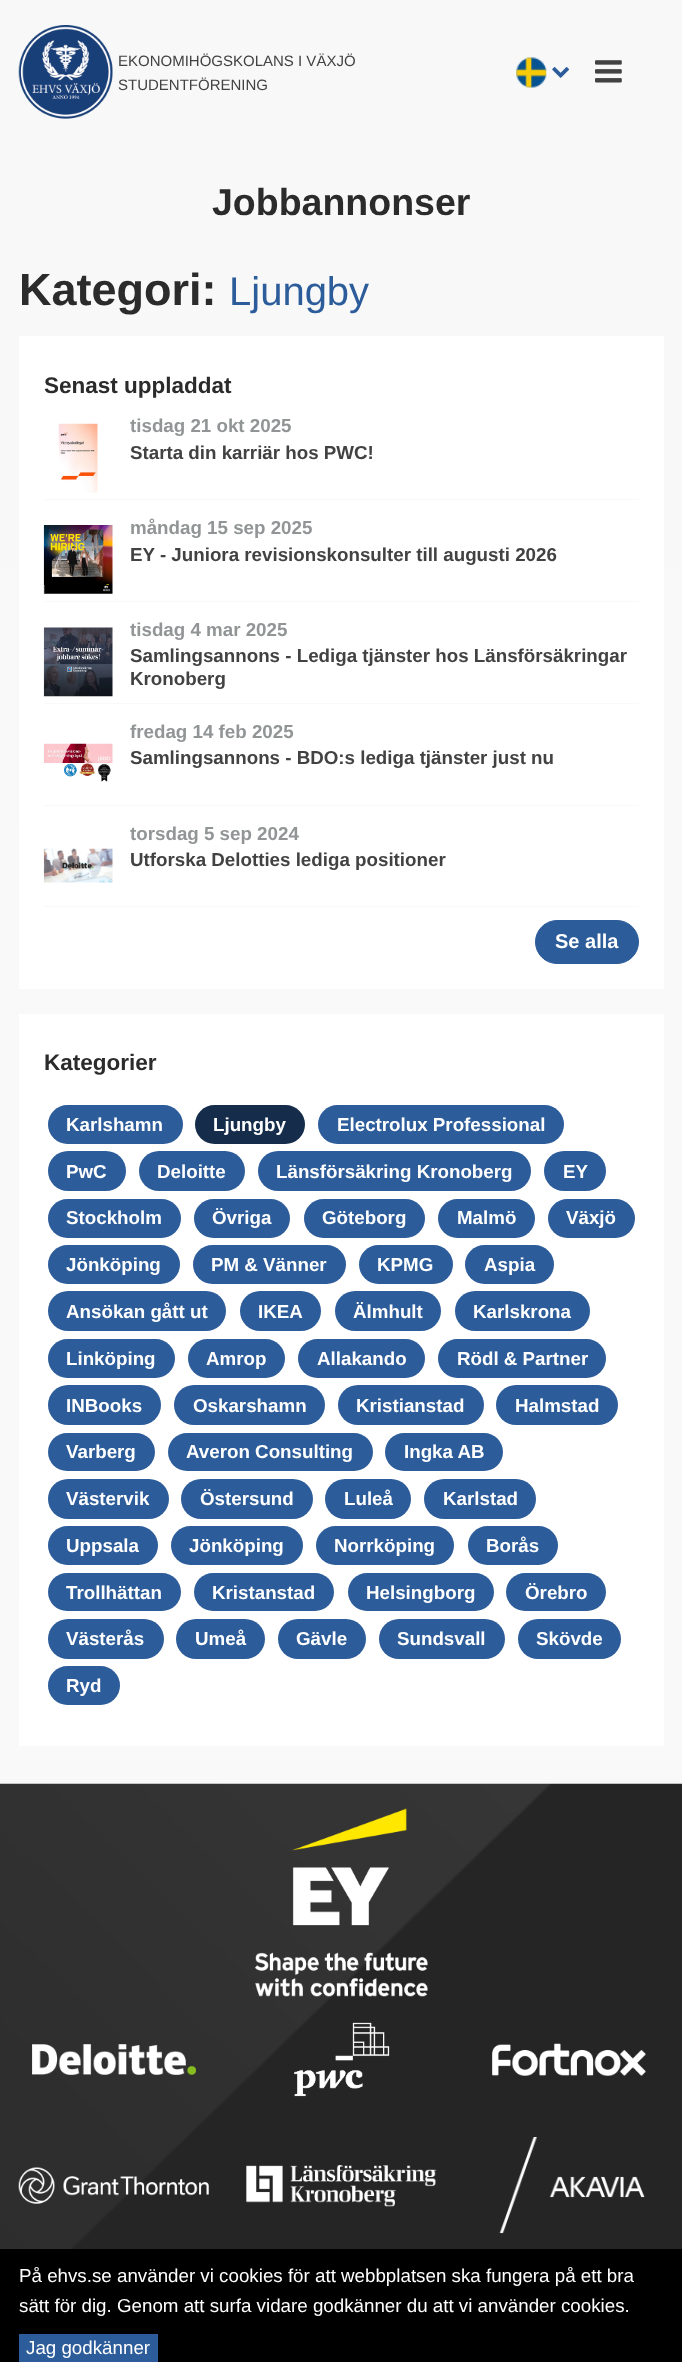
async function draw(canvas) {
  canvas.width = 682
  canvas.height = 2362
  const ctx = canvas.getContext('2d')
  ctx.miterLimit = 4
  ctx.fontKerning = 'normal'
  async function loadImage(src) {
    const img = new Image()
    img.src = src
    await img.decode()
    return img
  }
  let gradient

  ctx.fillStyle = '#fff'
  ctx.fillRect(0, 0, 682, 2362)
  gradient = ctx.createLinearGradient(341, 0, 341, 1784)
  gradient.addColorStop(0, '#f8f8f8')
  gradient.addColorStop(1, '#f9f9f9')
  ctx.fillStyle = gradient
  ctx.fillRect(0, 0, 682, 1784)
  ctx.drawImage(await loadImage('image0.png'), 18, 25, 95, 94)
  ctx.font = '15px Liberation Sans'
  ctx.fillStyle = '#424242'
  ctx.fillText('EKONOMIHÖGSKOLANS I VÄXJÖ', 118, 66)
  ctx.fillText('STUDENTFÖRENING', 118, 90)
  ctx.drawImage(await loadImage('image1.png'), 516, 57, 31, 31)
  ctx.drawImage(await loadImage('image2.png'), 552, 67, 17, 11)
  ctx.drawImage(await loadImage('image3.png'), 595, 60, 27, 23)
  ctx.font = 'bold 37.5px Liberation Sans'
  ctx.fillStyle = '#2b2b2b'
  ctx.fillText('Jobbannonser', 212, 215)
  ctx.font = 'bold 45px Liberation Sans'
  ctx.fillText('Kategori:', 19, 305)
  ctx.font = '40px Liberation Sans'
  ctx.fillStyle = '#2c5c9a'
  ctx.fillText('Ljungby', 229, 305)
  ctx.fillStyle = '#fff'
  ctx.fillRect(19, 336, 645, 653)
  ctx.font = 'bold 22.5px Liberation Sans'
  ctx.fillStyle = '#2b2b2b'
  ctx.fillText('Senast uppladdat', 44, 393)
  ctx.fillStyle = '#f9f9f9'
  ctx.fillRect(44, 499, 595, 1)
  ctx.drawImage(await loadImage('image4.png'), 58, 423, 40, 70)
  ctx.font = 'bold 18.75px Liberation Sans'
  ctx.fillStyle = '#919596'
  ctx.fillText('tisdag 21 okt 2025', 130, 432)
  ctx.fillStyle = '#424242'
  ctx.fillText('Starta din karriär hos PWC!', 130, 459)
  ctx.fillStyle = '#f9f9f9'
  ctx.fillRect(44, 601, 595, 1)
  ctx.drawImage(await loadImage('image5.png'), 43, 525, 70, 69)
  ctx.fillStyle = '#919596'
  ctx.fillText('måndag 15 sep 2025', 130, 534)
  ctx.fillStyle = '#424242'
  ctx.fillText('EY - Juniora revisionskonsulter till augusti 2026', 130, 561)
  ctx.fillStyle = '#f9f9f9'
  ctx.fillRect(44, 703, 595, 1)
  ctx.drawImage(await loadImage('image6.png'), 43, 627, 70, 70)
  ctx.fillStyle = '#919596'
  ctx.fillText('tisdag 4 mar 2025', 130, 636)
  ctx.fillStyle = '#424242'
  ctx.fillText('Samlingsannons - Lediga tjänster hos Länsförsäkringar', 130, 662)
  ctx.fillText('Kronoberg', 130, 685)
  ctx.fillStyle = '#f9f9f9'
  ctx.fillRect(44, 805, 595, 1)
  ctx.drawImage(await loadImage('image7.png'), 43, 743, 70, 39)
  ctx.fillStyle = '#919596'
  ctx.fillText('fredag 14 feb 2025', 130, 738)
  ctx.fillStyle = '#424242'
  ctx.fillText('Samlingsannons - BDO:s lediga tjänster just nu', 130, 764)
  ctx.fillStyle = '#f9f9f9'
  ctx.fillRect(44, 906, 595, 1)
  ctx.drawImage(await loadImage('image8.png'), 43, 848, 70, 35)
  ctx.fillStyle = '#919596'
  ctx.fillText('torsdag 5 sep 2024', 130, 840)
  ctx.fillStyle = '#424242'
  ctx.fillText('Utforska Delotties lediga positioner', 130, 866)
  ctx.fillStyle = '#2c5c9a'
  ctx.beginPath()
  ctx.roundRect(535.5, 920.5, 103, 43, 21.5)
  ctx.fill()
  ctx.strokeStyle = '#2c5c9a'
  ctx.stroke()
  ctx.font = 'bold 20px Liberation Sans'
  ctx.fillStyle = '#fff'
  ctx.fillText('Se alla', 555, 948)
  ctx.fillRect(19, 1014, 645, 732)
  ctx.font = 'bold 22.5px Liberation Sans'
  ctx.fillStyle = '#2b2b2b'
  ctx.fillText('Kategorier', 44, 1070)
  ctx.fillStyle = '#2c5c9a'
  ctx.beginPath()
  ctx.roundRect(48, 1105, 135, 39, 19.5)
  ctx.fill()
  ctx.font = 'bold 18.75px Liberation Sans'
  ctx.fillStyle = '#fff'
  ctx.fillText('Karlshamn', 66, 1131)
  ctx.fillStyle = '#152d4b'
  ctx.beginPath()
  ctx.roundRect(195, 1105, 110, 39, 19.5)
  ctx.fill()
  ctx.fillStyle = '#fff'
  ctx.fillText('Ljungby', 213, 1131)
  ctx.fillStyle = '#2c5c9a'
  ctx.beginPath()
  ctx.roundRect(318, 1105, 246, 39, 19.5)
  ctx.fill()
  ctx.fillStyle = '#fff'
  ctx.fillText('Electrolux Professional', 337, 1131)
  ctx.fillStyle = '#2c5c9a'
  ctx.beginPath()
  ctx.roundRect(48, 1151, 78, 40, 20)
  ctx.fill()
  ctx.fillStyle = '#fff'
  ctx.fillText('PwC', 66, 1178)
  ctx.fillStyle = '#2c5c9a'
  ctx.beginPath()
  ctx.roundRect(139, 1151, 106, 40, 20)
  ctx.fill()
  ctx.fillStyle = '#fff'
  ctx.fillText('Deloitte', 157, 1178)
  ctx.fillStyle = '#2c5c9a'
  ctx.beginPath()
  ctx.roundRect(258, 1151, 273, 40, 20)
  ctx.fill()
  ctx.fillStyle = '#fff'
  ctx.fillText('Länsförsäkring Kronoberg', 276, 1178)
  ctx.fillStyle = '#2c5c9a'
  ctx.beginPath()
  ctx.roundRect(544, 1151, 62, 40, 20)
  ctx.fill()
  ctx.fillStyle = '#fff'
  ctx.fillText('EY', 563, 1178)
  ctx.fillStyle = '#2c5c9a'
  ctx.beginPath()
  ctx.roundRect(48, 1199, 133, 39, 19.5)
  ctx.fill()
  ctx.fillStyle = '#fff'
  ctx.fillText('Stockholm', 66, 1224)
  ctx.fillStyle = '#2c5c9a'
  ctx.beginPath()
  ctx.roundRect(194, 1199, 96, 39, 19.5)
  ctx.fill()
  ctx.fillStyle = '#fff'
  ctx.fillText('Övriga', 212, 1224)
  ctx.fillStyle = '#2c5c9a'
  ctx.beginPath()
  ctx.roundRect(304, 1199, 121, 39, 19.5)
  ctx.fill()
  ctx.fillStyle = '#fff'
  ctx.fillText('Göteborg', 322, 1224)
  ctx.fillStyle = '#2c5c9a'
  ctx.beginPath()
  ctx.roundRect(438, 1199, 97, 39, 19.5)
  ctx.fill()
  ctx.fillStyle = '#fff'
  ctx.fillText('Malmö', 457, 1224)
  ctx.fillStyle = '#2c5c9a'
  ctx.beginPath()
  ctx.roundRect(548, 1199, 87, 39, 19.5)
  ctx.fill()
  ctx.fillStyle = '#fff'
  ctx.fillText('Växjö', 566, 1224)
  ctx.fillStyle = '#2c5c9a'
  ctx.beginPath()
  ctx.roundRect(48, 1245, 132, 39, 19.5)
  ctx.fill()
  ctx.fillStyle = '#fff'
  ctx.fillText('Jönköping', 66, 1271)
  ctx.fillStyle = '#2c5c9a'
  ctx.beginPath()
  ctx.roundRect(193, 1245, 153, 39, 19.5)
  ctx.fill()
  ctx.fillStyle = '#fff'
  ctx.fillText('PM & Vänner', 211, 1271)
  ctx.fillStyle = '#2c5c9a'
  ctx.beginPath()
  ctx.roundRect(359, 1245, 94, 39, 19.5)
  ctx.fill()
  ctx.fillStyle = '#fff'
  ctx.fillText('KPMG', 377, 1271)
  ctx.fillStyle = '#2c5c9a'
  ctx.beginPath()
  ctx.roundRect(465, 1245, 89, 39, 19.5)
  ctx.fill()
  ctx.fillStyle = '#fff'
  ctx.fillText('Aspia', 484, 1271)
  ctx.fillStyle = '#2c5c9a'
  ctx.beginPath()
  ctx.roundRect(48, 1291, 178, 40, 20)
  ctx.fill()
  ctx.fillStyle = '#fff'
  ctx.fillText('Ansökan gått ut', 66, 1318)
  ctx.fillStyle = '#2c5c9a'
  ctx.beginPath()
  ctx.roundRect(240, 1291, 81, 40, 20)
  ctx.fill()
  ctx.fillStyle = '#fff'
  ctx.fillText('IKEA', 258, 1318)
  ctx.fillStyle = '#2c5c9a'
  ctx.beginPath()
  ctx.roundRect(335, 1291, 106, 40, 20)
  ctx.fill()
  ctx.fillStyle = '#fff'
  ctx.fillText('Älmhult', 353, 1318)
  ctx.fillStyle = '#2c5c9a'
  ctx.beginPath()
  ctx.roundRect(455, 1291, 135, 40, 20)
  ctx.fill()
  ctx.fillStyle = '#fff'
  ctx.fillText('Karlskrona', 473, 1318)
  ctx.fillStyle = '#2c5c9a'
  ctx.beginPath()
  ctx.roundRect(48, 1339, 127, 39, 19.5)
  ctx.fill()
  ctx.fillStyle = '#fff'
  ctx.fillText('Linköping', 66, 1365)
  ctx.fillStyle = '#2c5c9a'
  ctx.beginPath()
  ctx.roundRect(188, 1339, 97, 39, 19.5)
  ctx.fill()
  ctx.fillStyle = '#fff'
  ctx.fillText('Amrop', 206, 1365)
  ctx.fillStyle = '#2c5c9a'
  ctx.beginPath()
  ctx.roundRect(298, 1339, 127, 39, 19.5)
  ctx.fill()
  ctx.fillStyle = '#fff'
  ctx.fillText('Allakando', 317, 1365)
  ctx.fillStyle = '#2c5c9a'
  ctx.beginPath()
  ctx.roundRect(438, 1339, 168, 39, 19.5)
  ctx.fill()
  ctx.fillStyle = '#fff'
  ctx.fillText('Rödl & Partner', 457, 1365)
  ctx.fillStyle = '#2c5c9a'
  ctx.beginPath()
  ctx.roundRect(48, 1385, 113, 40, 20)
  ctx.fill()
  ctx.fillStyle = '#fff'
  ctx.fillText('INBooks', 66, 1412)
  ctx.fillStyle = '#2c5c9a'
  ctx.beginPath()
  ctx.roundRect(174, 1385, 151, 40, 20)
  ctx.fill()
  ctx.fillStyle = '#fff'
  ctx.fillText('Oskarshamn', 193, 1412)
  ctx.fillStyle = '#2c5c9a'
  ctx.beginPath()
  ctx.roundRect(338, 1385, 146, 40, 20)
  ctx.fill()
  ctx.fillStyle = '#fff'
  ctx.fillText('Kristianstad', 356, 1412)
  ctx.fillStyle = '#2c5c9a'
  ctx.beginPath()
  ctx.roundRect(496, 1385, 122, 40, 20)
  ctx.fill()
  ctx.fillStyle = '#fff'
  ctx.fillText('Halmstad', 515, 1412)
  ctx.fillStyle = '#2c5c9a'
  ctx.beginPath()
  ctx.roundRect(48, 1433, 107, 38, 19)
  ctx.fill()
  ctx.fillStyle = '#fff'
  ctx.fillText('Varberg', 66, 1458)
  ctx.fillStyle = '#2c5c9a'
  ctx.beginPath()
  ctx.roundRect(168, 1433, 205, 38, 19)
  ctx.fill()
  ctx.fillStyle = '#fff'
  ctx.fillText('Averon Consulting', 186, 1458)
  ctx.fillStyle = '#2c5c9a'
  ctx.beginPath()
  ctx.roundRect(385, 1433, 118, 38, 19)
  ctx.fill()
  ctx.fillStyle = '#fff'
  ctx.fillText('Ingka AB', 404, 1458)
  ctx.fillStyle = '#2c5c9a'
  ctx.beginPath()
  ctx.roundRect(48, 1479, 121, 40, 20)
  ctx.fill()
  ctx.fillStyle = '#fff'
  ctx.fillText('Västervik', 66, 1505)
  ctx.fillStyle = '#2c5c9a'
  ctx.beginPath()
  ctx.roundRect(181, 1479, 132, 40, 20)
  ctx.fill()
  ctx.fillStyle = '#fff'
  ctx.fillText('Östersund', 200, 1505)
  ctx.fillStyle = '#2c5c9a'
  ctx.beginPath()
  ctx.roundRect(325, 1479, 86, 40, 20)
  ctx.fill()
  ctx.fillStyle = '#fff'
  ctx.fillText('Luleå', 344, 1505)
  ctx.fillStyle = '#2c5c9a'
  ctx.beginPath()
  ctx.roundRect(424, 1479, 112, 40, 20)
  ctx.fill()
  ctx.fillStyle = '#fff'
  ctx.fillText('Karlstad', 443, 1505)
  ctx.fillStyle = '#2c5c9a'
  ctx.beginPath()
  ctx.roundRect(48, 1526, 110, 39, 19.5)
  ctx.fill()
  ctx.fillStyle = '#fff'
  ctx.fillText('Uppsala', 66, 1552)
  ctx.fillStyle = '#2c5c9a'
  ctx.beginPath()
  ctx.roundRect(171, 1526, 132, 39, 19.5)
  ctx.fill()
  ctx.fillStyle = '#fff'
  ctx.fillText('Jönköping', 189, 1552)
  ctx.fillStyle = '#2c5c9a'
  ctx.beginPath()
  ctx.roundRect(316, 1526, 138, 39, 19.5)
  ctx.fill()
  ctx.fillStyle = '#fff'
  ctx.fillText('Norrköping', 334, 1552)
  ctx.fillStyle = '#2c5c9a'
  ctx.beginPath()
  ctx.roundRect(468, 1526, 90, 39, 19.5)
  ctx.fill()
  ctx.fillStyle = '#fff'
  ctx.fillText('Borås', 486, 1552)
  ctx.fillStyle = '#2c5c9a'
  ctx.beginPath()
  ctx.roundRect(48, 1573, 133, 38, 19)
  ctx.fill()
  ctx.fillStyle = '#fff'
  ctx.fillText('Trollhättan', 66, 1599)
  ctx.fillStyle = '#2c5c9a'
  ctx.beginPath()
  ctx.roundRect(194, 1573, 140, 38, 19)
  ctx.fill()
  ctx.fillStyle = '#fff'
  ctx.fillText('Kristanstad', 212, 1599)
  ctx.fillStyle = '#2c5c9a'
  ctx.beginPath()
  ctx.roundRect(348, 1573, 146, 38, 19)
  ctx.fill()
  ctx.fillStyle = '#fff'
  ctx.fillText('Helsingborg', 366, 1599)
  ctx.fillStyle = '#2c5c9a'
  ctx.beginPath()
  ctx.roundRect(506, 1573, 100, 38, 19)
  ctx.fill()
  ctx.fillStyle = '#fff'
  ctx.fillText('Örebro', 525, 1599)
  ctx.fillStyle = '#2c5c9a'
  ctx.beginPath()
  ctx.roundRect(48, 1619, 116, 40, 20)
  ctx.fill()
  ctx.fillStyle = '#fff'
  ctx.fillText('Västerås', 66, 1645)
  ctx.fillStyle = '#2c5c9a'
  ctx.beginPath()
  ctx.roundRect(176, 1619, 89, 40, 20)
  ctx.fill()
  ctx.fillStyle = '#fff'
  ctx.fillText('Umeå', 195, 1645)
  ctx.fillStyle = '#2c5c9a'
  ctx.beginPath()
  ctx.roundRect(278, 1619, 88, 40, 20)
  ctx.fill()
  ctx.fillStyle = '#fff'
  ctx.fillText('Gävle', 296, 1645)
  ctx.fillStyle = '#2c5c9a'
  ctx.beginPath()
  ctx.roundRect(379, 1619, 126, 40, 20)
  ctx.fill()
  ctx.fillStyle = '#fff'
  ctx.fillText('Sundsvall', 397, 1645)
  ctx.fillStyle = '#2c5c9a'
  ctx.beginPath()
  ctx.roundRect(518, 1619, 103, 40, 20)
  ctx.fill()
  ctx.fillStyle = '#fff'
  ctx.fillText('Skövde', 536, 1645)
  ctx.fillStyle = '#2c5c9a'
  ctx.beginPath()
  ctx.roundRect(48, 1666, 72, 39, 19.5)
  ctx.fill()
  ctx.fillStyle = '#fff'
  ctx.fillText('Ryd', 66, 1692)
  ctx.drawImage(await loadImage('image9.png'), 0, 1783, 682, 466)
  ctx.drawImage(await loadImage('image10.png'), 255, 1808, 173, 189)
  ctx.drawImage(await loadImage('image11.png'), 32, 2044, 164, 31)
  ctx.drawImage(await loadImage('image12.png'), 294, 2022, 96, 75)
  ctx.drawImage(await loadImage('image13.png'), 492, 2043, 154, 33)
  ctx.drawImage(await loadImage('image14.png'), 18, 2167, 191, 37)
  ctx.drawImage(await loadImage('image15.png'), 246, 2165, 191, 42)
  ctx.drawImage(await loadImage('image16.png'), 499, 2137, 146, 97)
  ctx.fillStyle = '#000'
  ctx.fillRect(0, 2249, 682, 113)
  ctx.font = '18.75px Liberation Sans'
  ctx.fillStyle = '#fff'
  ctx.fillText('På ehvs.se använder vi cookies för att webbplatsen ska fungera på ett bra', 19, 2282)
  ctx.fillText('sätt för dig. Genom att surfa vidare godkänner du att vi använder cookies.', 19, 2312)
  ctx.fillStyle = '#2c5c9a'
  ctx.fillRect(19, 2334, 139, 28)
  ctx.fillStyle = '#fff'
  ctx.fillText('Jag godkänner', 26, 2354)
}

draw(document.querySelector('canvas'))
